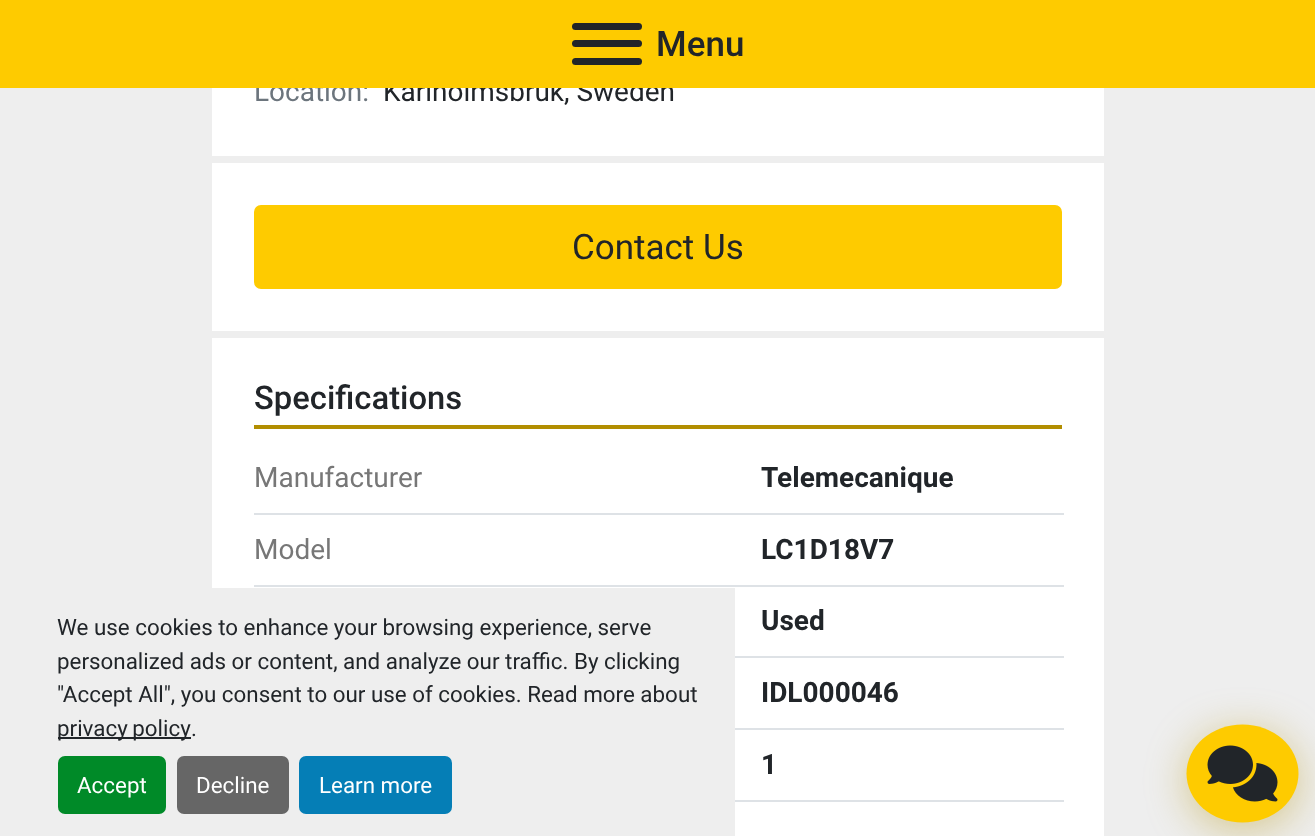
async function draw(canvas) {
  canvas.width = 1315
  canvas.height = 836
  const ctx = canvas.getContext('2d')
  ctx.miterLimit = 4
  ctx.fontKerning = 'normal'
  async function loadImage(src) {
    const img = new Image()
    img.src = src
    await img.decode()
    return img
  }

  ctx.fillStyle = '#eee'
  ctx.fillRect(0, 0, 1315, 836)
  ctx.fillStyle = '#fff'
  ctx.fillRect(212, 88, 892, 748)
  ctx.font = '28px Roboto'
  ctx.fillStyle = '#6c757d'
  ctx.fillText('Location:', 254, 101)
  ctx.fillStyle = '#212529'
  ctx.fillText('Karlholmsbruk, Sweden', 383, 101)
  ctx.fillStyle = '#fecb00'
  ctx.fillRect(0, 0, 1315, 88)
  ctx.fillStyle = '#212529'
  ctx.beginPath()
  ctx.roundRect(572, 40, 70, 7, 3.5)
  ctx.fill()
  ctx.beginPath()
  ctx.roundRect(572, 23, 70, 7, 3.5)
  ctx.fill()
  ctx.beginPath()
  ctx.roundRect(572, 58, 70, 7, 3.5)
  ctx.fill()
  ctx.font = '500 35px Roboto'
  ctx.fillText('Menu', 656, 56)
  ctx.fillStyle = '#eee'
  ctx.fillRect(212, 156, 892, 7)
  ctx.fillRect(212, 331, 892, 7)
  ctx.fillStyle = '#fecb00'
  ctx.beginPath()
  ctx.roundRect(255, 206, 806, 82, 6)
  ctx.fill()
  ctx.strokeStyle = '#fecb00'
  ctx.lineWidth = 2
  ctx.stroke()
  ctx.font = '35px Roboto'
  ctx.fillStyle = '#212529'
  ctx.fillText('Contact Us', 572, 259)
  ctx.fillStyle = '#b28e00'
  ctx.fillRect(254, 425, 808, 4)
  ctx.font = '500 32.75px Roboto'
  ctx.fillStyle = '#212529'
  ctx.fillText('Specifications', 254, 409)
  ctx.fillStyle = '#dee2e6'
  ctx.fillRect(254, 513, 810, 2)
  ctx.font = '28px Roboto'
  ctx.fillStyle = '#777'
  ctx.fillText('Manufacturer', 254, 487)
  ctx.font = 'bold 28px Roboto'
  ctx.fillStyle = '#212529'
  ctx.fillText('Telemecanique', 761, 487)
  ctx.fillStyle = '#dee2e6'
  ctx.fillRect(254, 585, 810, 2)
  ctx.font = '28px Roboto'
  ctx.fillStyle = '#777'
  ctx.fillText('Model', 254, 559)
  ctx.font = 'bold 28px Roboto'
  ctx.fillStyle = '#212529'
  ctx.fillText('LC1D18V7', 761, 559)
  ctx.fillStyle = '#dee2e6'
  ctx.fillRect(735, 656, 329, 2)
  ctx.fillStyle = '#212529'
  ctx.fillText('Used', 761, 630)
  ctx.fillStyle = '#dee2e6'
  ctx.fillRect(735, 728, 329, 2)
  ctx.fillStyle = '#212529'
  ctx.fillText('IDL000046', 761, 702)
  ctx.fillStyle = '#dee2e6'
  ctx.fillRect(735, 800, 329, 2)
  ctx.fillStyle = '#212529'
  ctx.fillText('1', 761, 774)
  ctx.fillStyle = '#b28e0066'
  ctx.filter = 'blur(21px)'
  ctx.beginPath()
  ctx.roundRect(1187, 732, 112, 98, 49)
  ctx.fill()
  ctx.filter = 'none'
  ctx.fillStyle = '#fecb00'
  ctx.beginPath()
  ctx.ellipse(1242.5, 773.5, 56, 49, 0, 0, 2 * Math.PI)
  ctx.fill()
  ctx.drawImage(await loadImage('image0.png'), 1207, 745, 71, 57)
  ctx.fillStyle = '#eee'
  ctx.fillRect(212, 588, 523, 248)
  ctx.font = '22.4px Roboto'
  ctx.fillStyle = '#212529'
  ctx.fillText('We use cookies to enhance your browsing experience, serve', 57, 635)
  ctx.fillText('personalized ads or content, and analyze our traffic. By clicking', 57, 669)
  ctx.fillText('"Accept All", you consent to our use of cookies. Read more about', 57, 702)
  ctx.fillRect(58, 737, 133, 2)
  ctx.wordSpacing = '-1px'
  ctx.fillText('privacy policy', 57, 736)
  ctx.wordSpacing = '0px'
  ctx.fillText('.', 191, 736)
  ctx.fillStyle = '#008a28'
  ctx.beginPath()
  ctx.roundRect(58, 756, 108, 58, 7)
  ctx.fill()
  ctx.fillStyle = '#fff'
  ctx.fillText('Accept', 77, 793)
  ctx.fillStyle = '#666'
  ctx.beginPath()
  ctx.roundRect(177, 756, 112, 58, 7)
  ctx.fill()
  ctx.fillStyle = '#fff'
  ctx.fillText('Decline', 196, 793)
  ctx.fillStyle = '#057eb6'
  ctx.beginPath()
  ctx.roundRect(299, 756, 153, 58, 7)
  ctx.fill()
  ctx.fillStyle = '#fff'
  ctx.fillText('Learn more', 319, 793)
}

draw(document.querySelector('canvas'))
